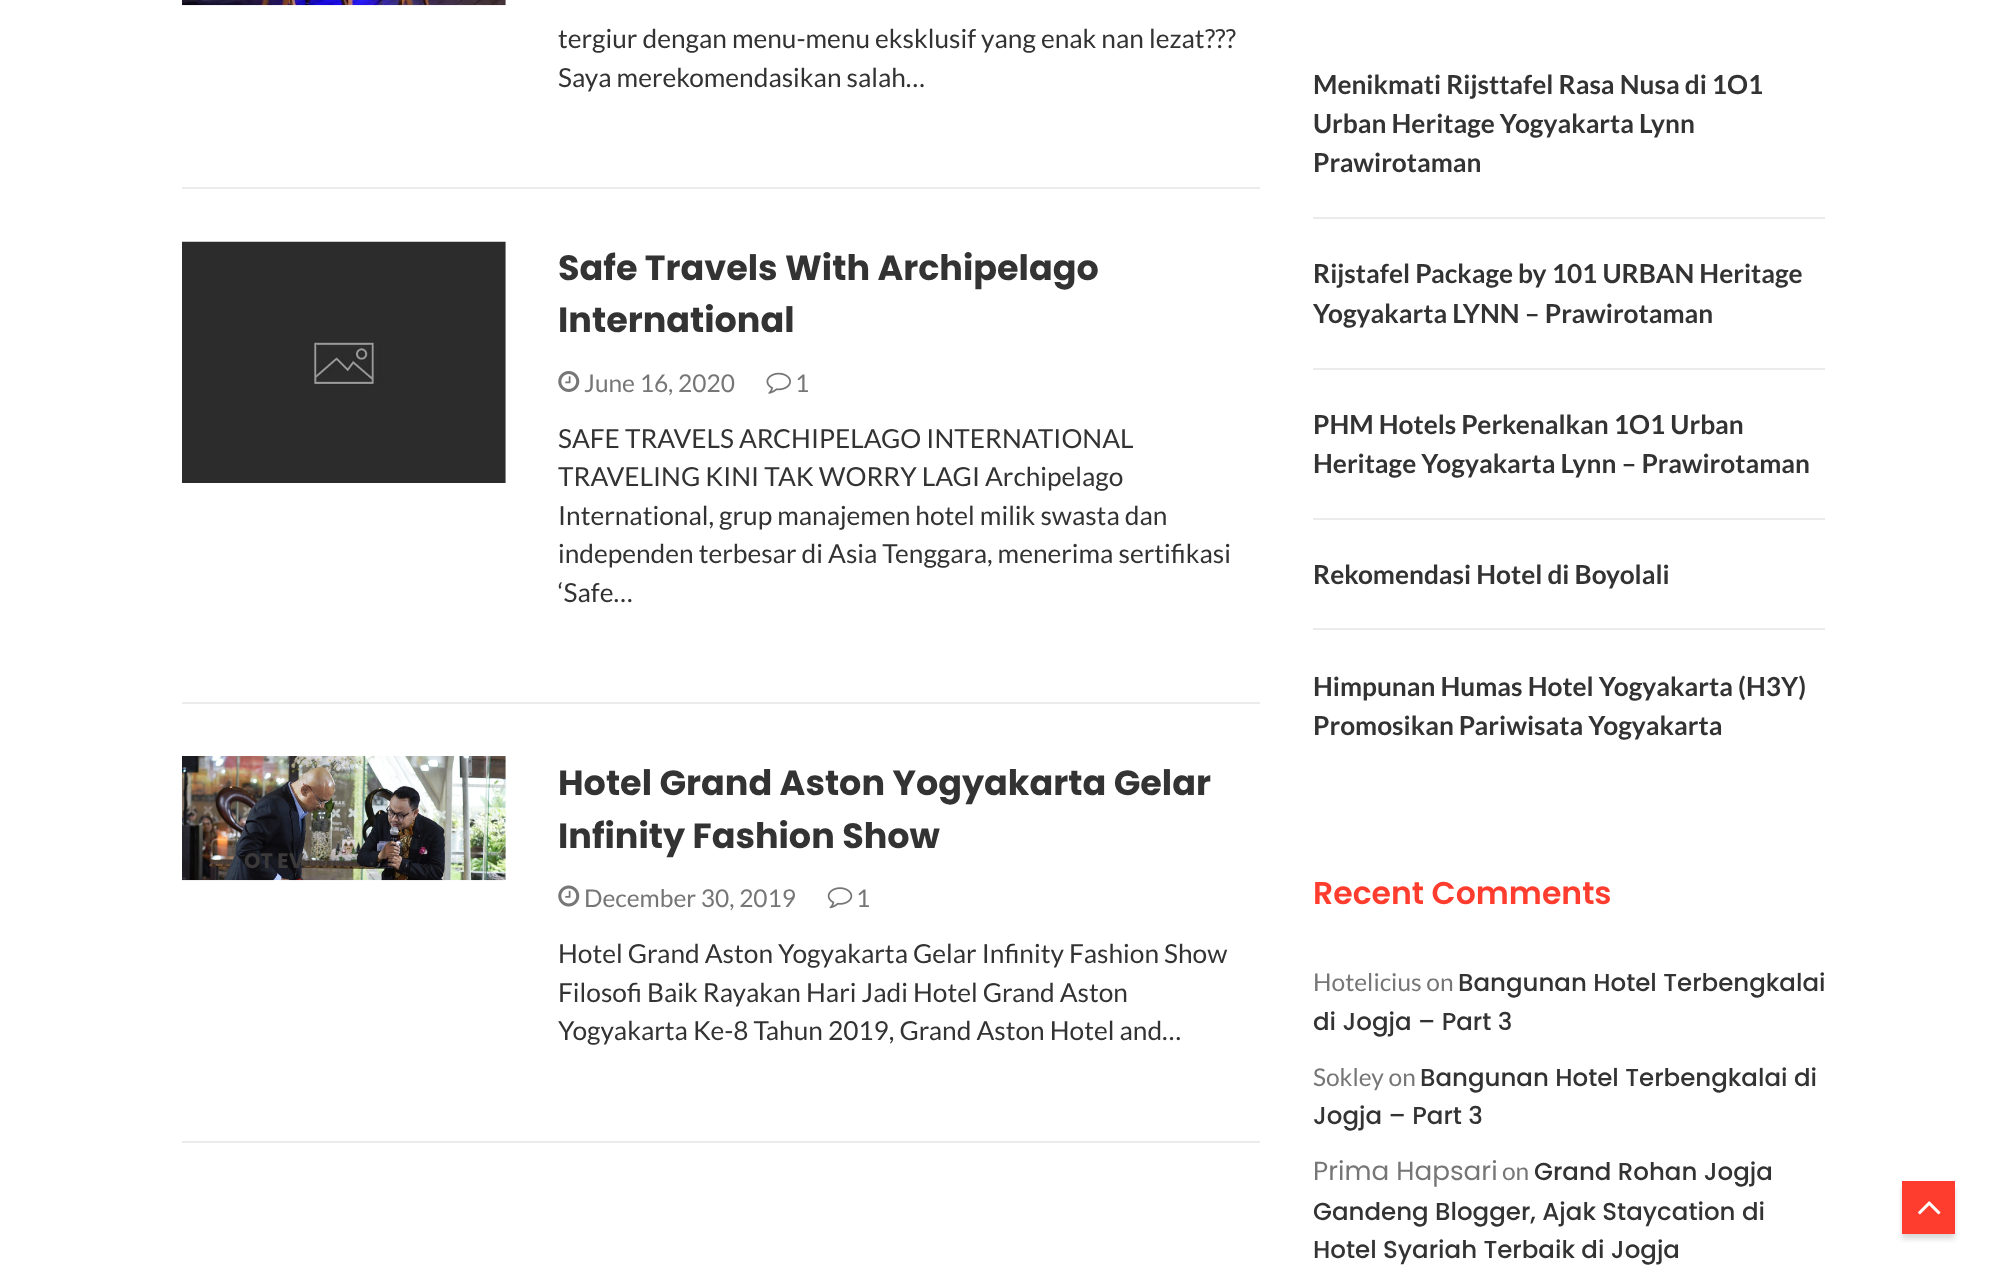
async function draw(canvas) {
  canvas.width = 2006
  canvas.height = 1285
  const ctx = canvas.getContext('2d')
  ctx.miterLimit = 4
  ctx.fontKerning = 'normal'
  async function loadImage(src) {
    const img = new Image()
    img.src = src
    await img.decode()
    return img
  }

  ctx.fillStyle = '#fff'
  ctx.fillRect(0, 0, 2006, 1285)
  ctx.fillStyle = '#ebebeb'
  ctx.fillRect(182, 187, 1078, 2)
  ctx.drawImage(await loadImage('image0.png'), 182, 0, 324, 6)
  ctx.font = '26.25px Lato'
  ctx.fillStyle = '#333'
  ctx.fillText('tergiur dengan menu-menu eksklusif yang enak nan lezat???', 558, 48)
  ctx.fillText('Saya merekomendasikan salah…', 558, 87)
  ctx.fillStyle = '#ebebeb'
  ctx.fillRect(182, 702, 1078, 2)
  ctx.drawImage(await loadImage('image1.png'), 182, 241, 324, 242)
  ctx.font = 'bold 35px Poppins'
  ctx.fillStyle = '#333'
  ctx.fillText('Safe Travels With Archipelago', 558, 280)
  ctx.fillText('International', 558, 332)
  ctx.drawImage(await loadImage('image2.png'), 558, 371, 22, 21)
  ctx.font = '24.5px Lato'
  ctx.fillStyle = '#767676'
  ctx.fillText('June 16, 2020', 584, 392)
  ctx.drawImage(await loadImage('image3.png'), 766, 372, 25, 22)
  ctx.fillText('1', 795, 392)
  ctx.font = '26.25px Lato'
  ctx.fillStyle = '#333'
  ctx.fillText('SAFE TRAVELS ARCHIPELAGO INTERNATIONAL', 558, 448)
  ctx.fillText('TRAVELING KINI TAK WORRY LAGI Archipelago', 558, 486)
  ctx.fillText('International, grup manajemen hotel milik swasta dan', 558, 525)
  ctx.fillText('independen terbesar di Asia Tenggara, menerima sertifikasi', 558, 563)
  ctx.fillText('‘Safe…', 558, 602)
  ctx.fillStyle = '#ebebeb'
  ctx.fillRect(182, 1141, 1078, 2)
  ctx.drawImage(await loadImage('image4.png'), 182, 756, 324, 125)
  ctx.font = 'bold 21px Poppins'
  ctx.fillStyle = '#3b3939'
  ctx.fillText('OT EV', 244, 868)
  ctx.font = 'bold 35px Poppins'
  ctx.fillStyle = '#333'
  ctx.fillText('Hotel Grand Aston Yogyakarta Gelar', 558, 795)
  ctx.fillText('Infinity Fashion Show', 558, 848)
  ctx.drawImage(await loadImage('image5.png'), 558, 885, 22, 22)
  ctx.font = '24.5px Lato'
  ctx.fillStyle = '#767676'
  ctx.fillText('December 30, 2019', 584, 907)
  ctx.drawImage(await loadImage('image6.png'), 827, 887, 26, 22)
  ctx.fillText('1', 856, 907)
  ctx.font = '26.25px Lato'
  ctx.fillStyle = '#333'
  ctx.fillText('Hotel Grand Aston Yogyakarta Gelar Infinity Fashion Show', 558, 963)
  ctx.fillText('Filosofi Baik Rayakan Hari Jadi Hotel Grand Aston', 558, 1002)
  ctx.fillText('Yogyakarta Ke-8 Tahun 2019, Grand Aston Hotel and…', 558, 1040)
  ctx.fillStyle = '#ebebeb'
  ctx.fillRect(1313, 217, 512, 2)
  ctx.font = 'bold 26.25px Lato'
  ctx.fillStyle = '#333'
  ctx.fillText('Menikmati Rijsttafel Rasa Nusa di 1O1', 1313, 94)
  ctx.fillText('Urban Heritage Yogyakarta Lynn', 1313, 133)
  ctx.fillText('Prawirotaman', 1313, 172)
  ctx.fillStyle = '#ebebeb'
  ctx.fillRect(1313, 368, 512, 2)
  ctx.fillStyle = '#333'
  ctx.fillText('Rijstafel Package by 101 URBAN Heritage', 1313, 283)
  ctx.fillText('Yogyakarta LYNN – Prawirotaman', 1313, 323)
  ctx.fillStyle = '#ebebeb'
  ctx.fillRect(1313, 518, 512, 2)
  ctx.fillStyle = '#333'
  ctx.fillText('PHM Hotels Perkenalkan 1O1 Urban', 1313, 434)
  ctx.fillText('Heritage Yogyakarta Lynn – Prawirotaman', 1313, 473)
  ctx.fillStyle = '#ebebeb'
  ctx.fillRect(1313, 628, 512, 2)
  ctx.fillStyle = '#333'
  ctx.fillText('Rekomendasi Hotel di Boyolali', 1313, 584)
  ctx.fillText('Himpunan Humas Hotel Yogyakarta (H3Y)', 1313, 696)
  ctx.fillText('Promosikan Pariwisata Yogyakarta', 1313, 735)
  ctx.font = '600 31.5px Poppins'
  ctx.fillStyle = '#ff3d2e'
  ctx.fillText('Recent Comments', 1313, 904)
  ctx.font = '24.5px Lato'
  ctx.fillStyle = '#767676'
  ctx.fillText('Hotelicius on', 1313, 991)
  ctx.font = '500 24.5px Poppins'
  ctx.fillStyle = '#333'
  ctx.fillText('Bangunan Hotel Terbengkalai', 1458, 991)
  ctx.fillText('di Jogja – Part 3', 1313, 1030)
  ctx.font = '24.5px Lato'
  ctx.fillStyle = '#767676'
  ctx.fillText('Sokley on', 1313, 1086)
  ctx.font = '500 24.5px Poppins'
  ctx.fillStyle = '#333'
  ctx.fillText('Bangunan Hotel Terbengkalai di', 1420, 1086)
  ctx.fillText('Jogja – Part 3', 1313, 1124)
  ctx.font = '26.25px Poppins'
  ctx.fillStyle = '#767676'
  ctx.fillText('Prima Hapsari', 1313, 1180)
  ctx.font = '24.5px Lato'
  ctx.fillText('on', 1502, 1180)
  ctx.font = '500 24.5px Poppins'
  ctx.fillStyle = '#333'
  ctx.fillText('Grand Rohan Jogja', 1534, 1180)
  ctx.fillText('Gandeng Blogger, Ajak Staycation di', 1313, 1220)
  ctx.fillText('Hotel Syariah Terbaik di Jogja', 1313, 1258)
  ctx.fillStyle = '#00000026'
  ctx.filter = 'blur(2.5px)'
  ctx.beginPath()
  ctx.rect(1902, 1187, 53, 52)
  ctx.fill()
  ctx.filter = 'none'
  ctx.fillStyle = '#ff3d2e'
  ctx.fillRect(1902, 1181, 53, 53)
  ctx.drawImage(await loadImage('image7.png'), 1918, 1201, 23, 14)
}

draw(document.querySelector('canvas'))
